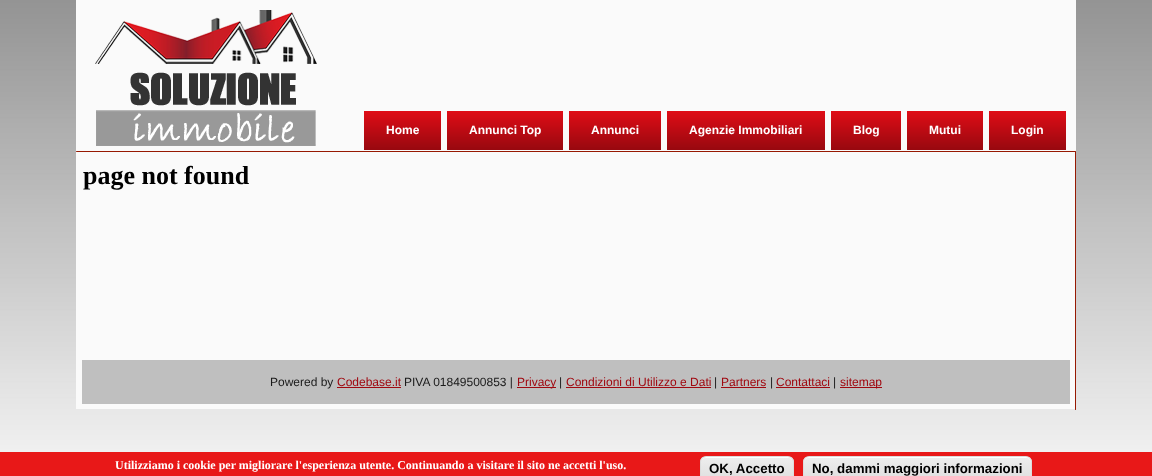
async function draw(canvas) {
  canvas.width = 1152
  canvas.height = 476
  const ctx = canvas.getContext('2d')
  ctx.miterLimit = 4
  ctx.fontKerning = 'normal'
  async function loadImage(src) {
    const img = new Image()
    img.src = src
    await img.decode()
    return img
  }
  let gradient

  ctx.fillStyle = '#fff'
  ctx.fillRect(0, 0, 1152, 476)
  ctx.drawImage(await loadImage('image0.png'), 0, 0, 1152, 452)
  ctx.fillStyle = '#fafafa'
  ctx.fillRect(76, 0, 1000, 151)
  ctx.drawImage(await loadImage('image1.png'), 95, 10, 222, 136)
  ctx.drawImage(await loadImage('image2.png'), 364, 111, 77, 39)
  ctx.font = 'bold 12px Liberation Sans'
  ctx.fillStyle = '#fff'
  ctx.fillText('Home', 386, 134)
  ctx.drawImage(await loadImage('image3.png'), 447, 111, 116, 39)
  ctx.fillText('Annunci Top', 469, 134)
  ctx.drawImage(await loadImage('image4.png'), 569, 111, 92, 39)
  ctx.fillText('Annunci', 591, 134)
  ctx.drawImage(await loadImage('image5.png'), 667, 111, 158, 39)
  ctx.fillText('Agenzie Immobiliari', 689, 134)
  ctx.drawImage(await loadImage('image6.png'), 831, 111, 70, 39)
  ctx.fillText('Blog', 853, 134)
  ctx.drawImage(await loadImage('image7.png'), 907, 111, 76, 39)
  ctx.fillText('Mutui', 929, 134)
  ctx.drawImage(await loadImage('image2.png'), 989, 111, 77, 39)
  ctx.fillText('Login', 1011, 134)
  ctx.drawImage(await loadImage('image8.png'), 76, 151, 999, 1)
  ctx.drawImage(await loadImage('image9.png'), 1075, 409, 1, 1)
  ctx.fillStyle = '#9d2813'
  ctx.fillRect(1075, 151, 1, 1)
  ctx.fillStyle = '#fafafa'
  ctx.fillRect(76, 152, 999, 257)
  ctx.fillStyle = '#971902'
  ctx.fillRect(1075, 152, 1, 257)
  ctx.font = 'bold 26px Liberation Serif'
  ctx.fillStyle = '#000'
  ctx.fillText('page not found', 83, 184)
  ctx.fillStyle = '#bfbfbf'
  ctx.fillRect(82, 360, 988, 44)
  ctx.font = '12px Liberation Sans'
  ctx.fillStyle = '#1a1a1a'
  ctx.fillText('Powered by', 270, 386)
  ctx.fillStyle = '#a00810'
  ctx.fillText('Codebase.it', 337, 386)
  ctx.fillRect(337, 387, 64, 1)
  ctx.fillStyle = '#1a1a1a'
  ctx.fillText('PIVA 01849500853 |', 404, 386)
  ctx.fillStyle = '#a00810'
  ctx.fillRect(517, 387, 39, 1)
  ctx.fillText('Privacy', 517, 386)
  ctx.fillStyle = '#1a1a1a'
  ctx.fillText('|', 559, 386)
  ctx.fillStyle = '#a00810'
  ctx.fillText('Condizioni di Utilizzo e Dati', 566, 386)
  ctx.fillRect(566, 387, 145, 1)
  ctx.fillStyle = '#1a1a1a'
  ctx.fillText('|', 714, 386)
  ctx.fillStyle = '#a00810'
  ctx.fillText('Partners', 721, 386)
  ctx.fillRect(721, 387, 45, 1)
  ctx.fillStyle = '#1a1a1a'
  ctx.fillText('|', 770, 386)
  ctx.fillStyle = '#a00810'
  ctx.fillText('Contattaci', 776, 386)
  ctx.fillRect(776, 387, 54, 1)
  ctx.fillStyle = '#1a1a1a'
  ctx.fillText('|', 833, 386)
  ctx.fillStyle = '#a00810'
  ctx.fillRect(840, 387, 42, 1)
  ctx.fillText('sitemap', 840, 386)
  ctx.fillStyle = '#e81818'
  ctx.fillRect(0, 452, 1152, 24)
  ctx.font = 'bold 12px Liberation Serif'
  ctx.fillStyle = '#fff'
  ctx.fillText('Utilizziamo i cookie per migliorare l\'esperienza utente. Continuando a visitare il sito ne accetti l\'uso.', 115, 469)
  ctx.save()
  ctx.beginPath()
  ctx.roundRect(700, 456, 94, 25, 6)
  ctx.clip()
  gradient = ctx.createLinearGradient(701, 457, 701, 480)
  gradient.addColorStop(0.05, '#ededed')
  gradient.addColorStop(1, '#dfdfdf')
  ctx.fillStyle = gradient
  ctx.fillRect(700, 457, 94, 19)
  ctx.restore()
  ctx.beginPath()
  ctx.moveTo(706, 458)
  ctx.lineTo(788, 458)
  ctx.bezierCurveTo(791, 458, 793, 460, 793, 463)
  ctx.bezierCurveTo(793, 454, 780, 457, 774, 457)
  ctx.lineTo(720, 457)
  ctx.bezierCurveTo(714, 457, 701, 454, 701, 463)
  ctx.bezierCurveTo(701, 460, 703, 458, 706, 458)
  ctx.closePath()
  ctx.fill()
  ctx.beginPath()
  ctx.roundRect(700.5, 456.5, 93, 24, 5.5)
  ctx.strokeStyle = '#dcdcdc'
  ctx.stroke()
  ctx.font = 'bold 13.3px Liberation Sans'
  ctx.fillStyle = '#000'
  ctx.fillText('OK, Accetto', 709, 473)
  ctx.save()
  ctx.beginPath()
  ctx.roundRect(803, 456, 229, 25, 6)
  ctx.clip()
  gradient = ctx.createLinearGradient(804, 457, 804, 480)
  gradient.addColorStop(0.05, '#ededed')
  gradient.addColorStop(1, '#dfdfdf')
  ctx.fillStyle = gradient
  ctx.fillRect(803, 457, 229, 19)
  ctx.restore()
  ctx.fillStyle = '#fff'
  ctx.beginPath()
  ctx.moveTo(809, 458)
  ctx.lineTo(1026, 458)
  ctx.bezierCurveTo(1029, 458, 1031, 460, 1031, 463)
  ctx.lineTo(1031, 462)
  ctx.bezierCurveTo(1031, 459, 1029, 457, 1026, 457)
  ctx.lineTo(809, 457)
  ctx.bezierCurveTo(806, 457, 804, 459, 804, 462)
  ctx.lineTo(804, 463)
  ctx.bezierCurveTo(804, 460, 806, 458, 809, 458)
  ctx.closePath()
  ctx.fill()
  ctx.beginPath()
  ctx.roundRect(803.5, 456.5, 228, 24, 5.5)
  ctx.stroke()
  ctx.fillStyle = '#000'
  ctx.fillText('No, dammi maggiori informazioni', 812, 473)
}

draw(document.querySelector('canvas'))
